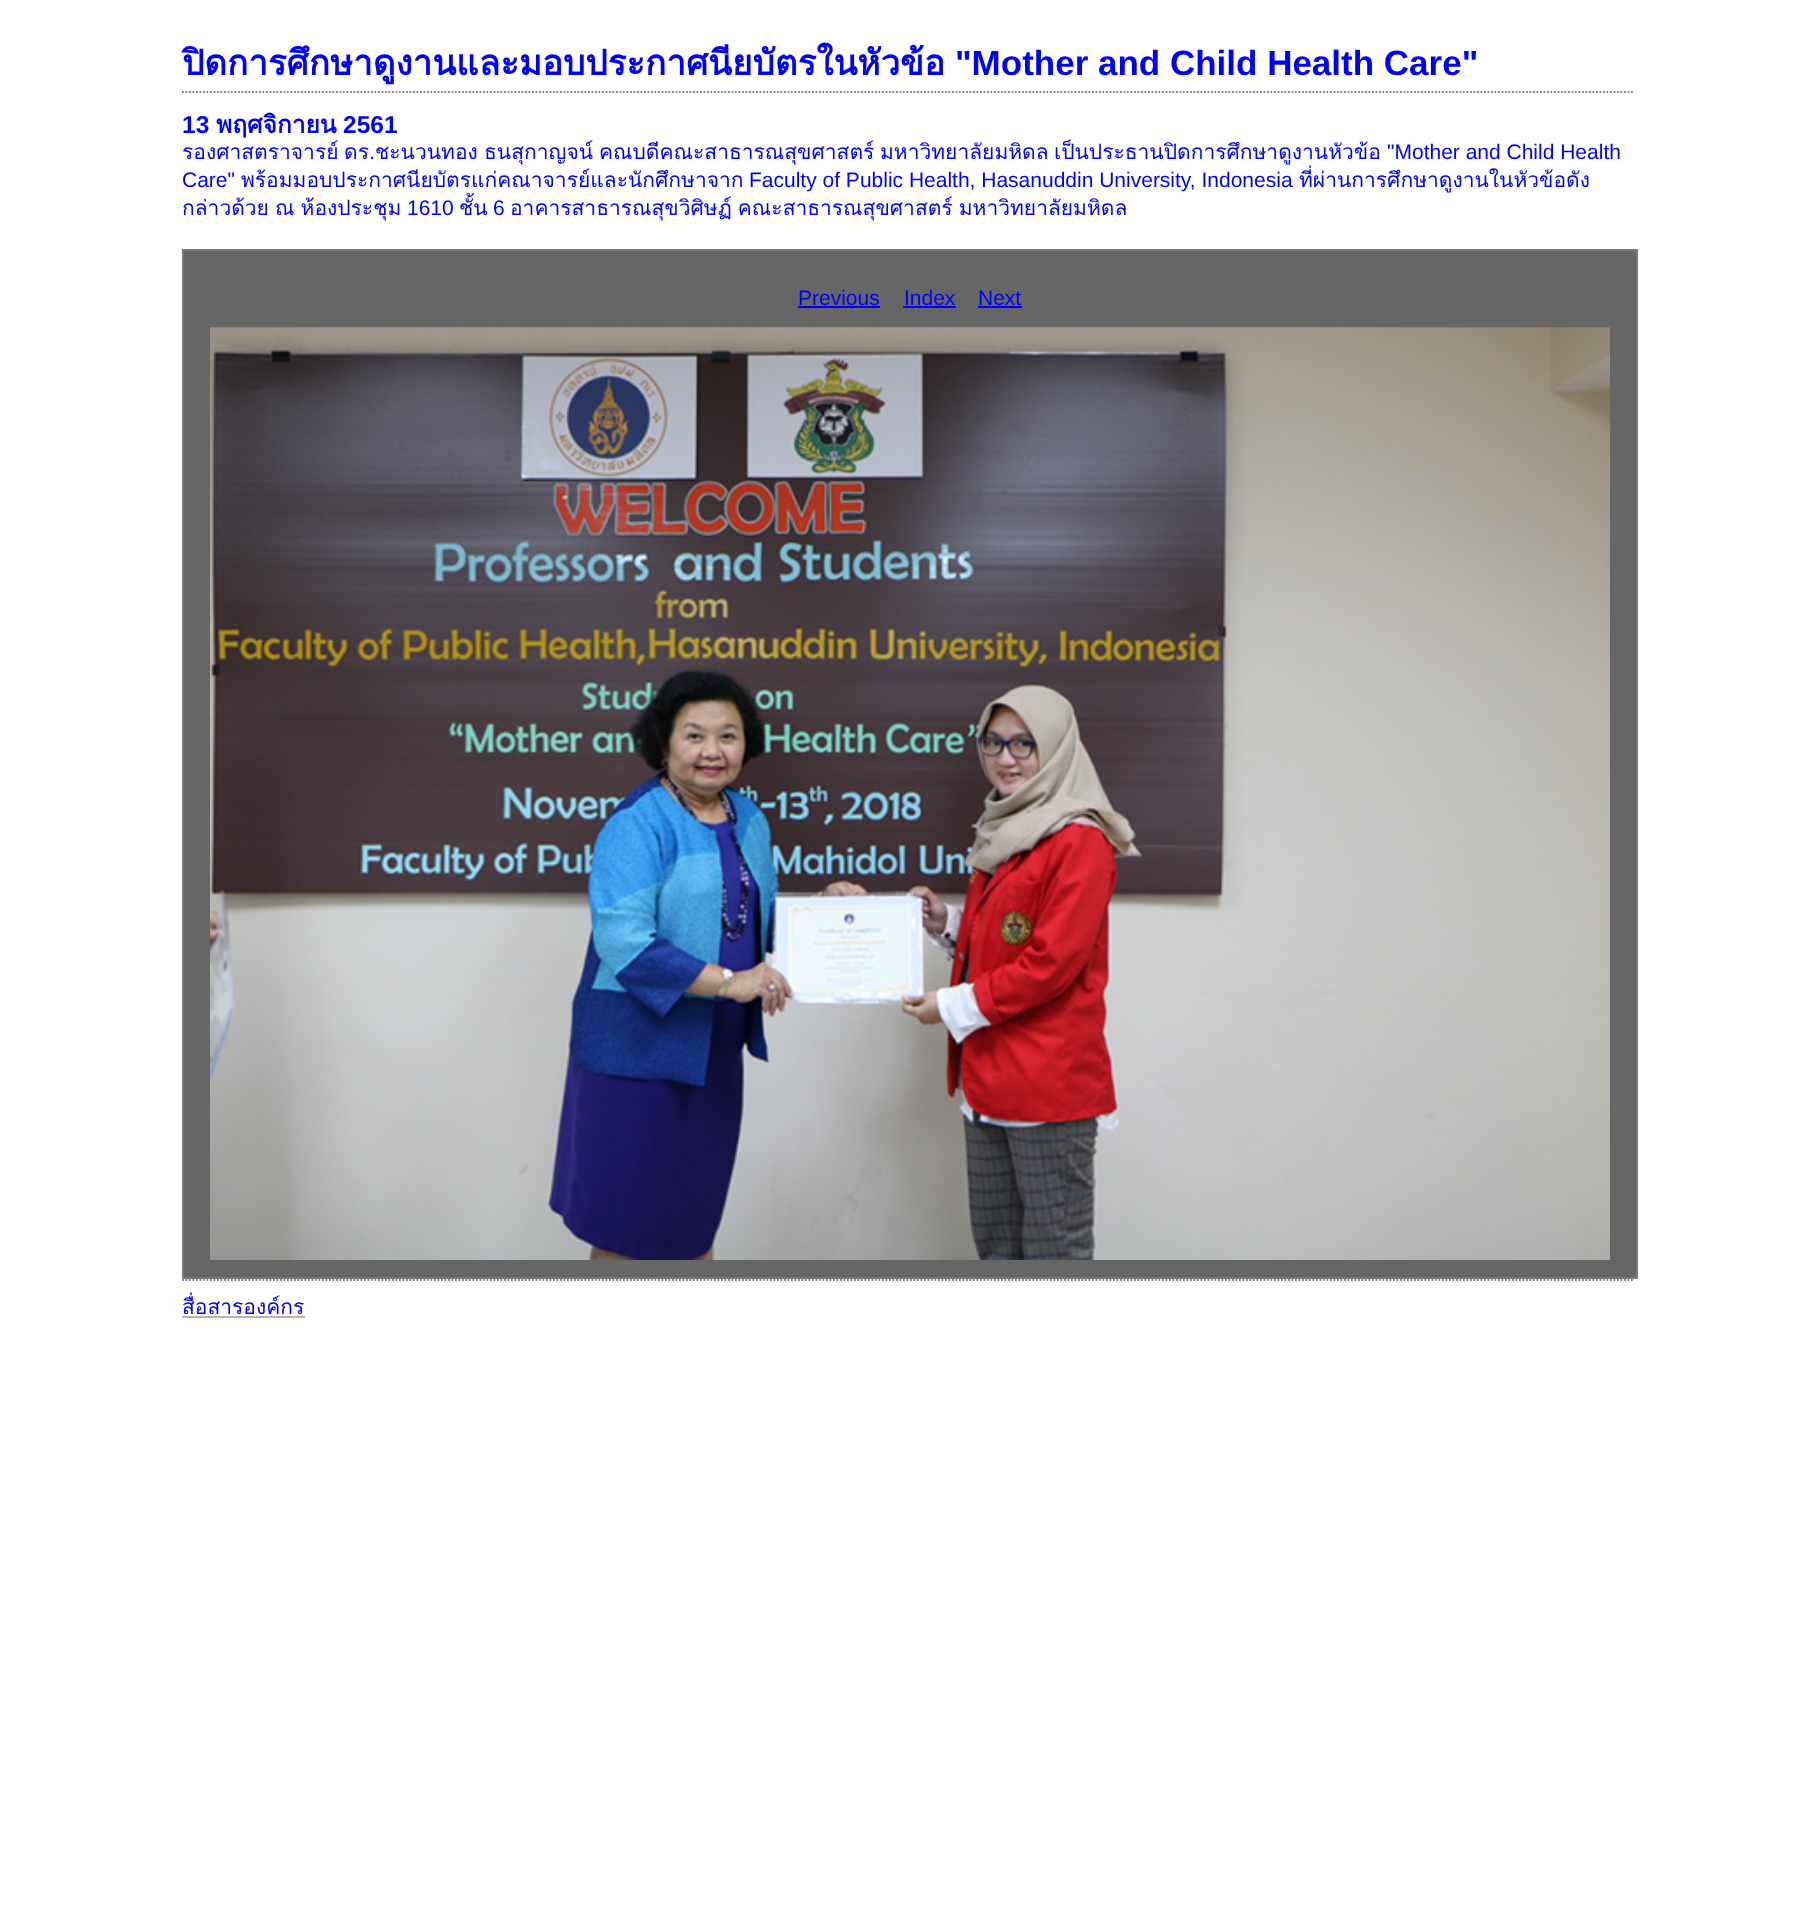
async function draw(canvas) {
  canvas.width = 1816
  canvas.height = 1920
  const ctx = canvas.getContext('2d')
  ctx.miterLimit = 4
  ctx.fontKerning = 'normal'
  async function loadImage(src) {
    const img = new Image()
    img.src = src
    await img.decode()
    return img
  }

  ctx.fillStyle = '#fff'
  ctx.fillRect(0, 0, 1816, 1920)
  ctx.beginPath()
  ctx.moveTo(182, 92)
  ctx.lineTo(1634.5, 92)
  ctx.strokeStyle = '#7f7f7f'
  ctx.lineWidth = 1.8
  ctx.setLineDash([1.75, 1.75])
  ctx.stroke()
  ctx.font = 'bold 35px Loma'
  ctx.fillStyle = '#00f'
  ctx.fillText('ปิดการศึกษาดูงานและมอบประกาศนียบัตรในหัวข้อ', 182, 75)
  ctx.font = 'bold 35px Liberation Sans'
  ctx.fillText('"Mother and Child Health Care"', 955, 75)
  ctx.font = 'bold 24.5px Liberation Sans'
  ctx.fillText('13', 182, 133)
  ctx.font = 'bold 24.5px Loma'
  ctx.fillText('พฤศจิกายน', 216, 133)
  ctx.font = 'bold 24.5px Liberation Sans'
  ctx.fillText('2561', 343, 133)
  ctx.font = '21px Loma'
  ctx.fillText('รองศาสตราจารย์', 182, 159)
  ctx.fillText('ดร', 344, 159)
  ctx.font = '21px Liberation Sans'
  ctx.fillText('.', 369, 159)
  ctx.font = '21px Loma'
  ctx.fillText('ชะนวนทอง', 375, 159)
  ctx.fillText('ธนสุกาญจน์', 484, 159)
  ctx.fillText('คณบดีคณะสาธารณสุขศาสตร์', 599, 159)
  ctx.fillText('มหาวิทยาลัยมหิดล', 880, 159)
  ctx.fillText('เป็นประธานปิดการศึกษาดูงานหัวข้อ', 1054, 159)
  ctx.font = '21px Liberation Sans'
  ctx.fillText('"Mother and Child Health', 1387, 159)
  ctx.fillText('Care"', 182, 187)
  ctx.font = '21px Loma'
  ctx.fillText('พร้อมมอบประกาศนียบัตรแก่คณาจารย์และนักศึกษาจาก', 241, 187)
  ctx.font = '21px Liberation Sans'
  ctx.fillText('Faculty of Public Health, Hasanuddin University, Indonesia', 749, 187)
  ctx.font = '21px Loma'
  ctx.fillText('ที่ผ่านการศึกษาดูงานในหัวข้อดัง', 1299, 187)
  ctx.wordSpacing = '-1px'
  ctx.fillText('กล่าวด้วย ณ ห้องประชุม', 182, 215)
  ctx.wordSpacing = '0px'
  ctx.font = '21px Liberation Sans'
  ctx.fillText('1610', 407, 215)
  ctx.font = '21px Loma'
  ctx.fillText('ชั้น', 459, 215)
  ctx.font = '21px Liberation Sans'
  ctx.fillText('6', 493, 215)
  ctx.wordSpacing = '-1px'
  ctx.font = '21px Loma'
  ctx.fillText('อาคารสาธารณสุขวิศิษฏ์ คณะสาธารณสุขศาสตร์ มหาวิทยาลัยมหิดล', 510, 215)
  ctx.fillStyle = '#666'
  ctx.beginPath()
  ctx.rect(183, 250, 1454, 1028)
  ctx.fill()
  ctx.strokeStyle = '#787878'
  ctx.lineWidth = 2
  ctx.setLineDash([])
  ctx.stroke()
  ctx.wordSpacing = '0px'
  ctx.font = '21px Liberation Sans'
  ctx.fillStyle = '#00f'
  ctx.fillText('Previous', 798, 305)
  ctx.fillRect(798, 306, 82, 2)
  ctx.fillText('Index', 904, 305)
  ctx.fillRect(903, 306, 53, 2)
  ctx.fillText('Next', 978, 305)
  ctx.fillRect(978, 306, 44, 2)
  ctx.drawImage(await loadImage('image0.png'), 210, 327, 1400, 933)
  ctx.beginPath()
  ctx.moveTo(182, 1280)
  ctx.lineTo(1634.5, 1280)
  ctx.strokeStyle = '#7f7f7f'
  ctx.lineWidth = 1.8
  ctx.setLineDash([1.75, 1.75])
  ctx.stroke()
  ctx.font = '21px Loma'
  ctx.fillText('สื่อสารองค์กร', 182, 1314)
  ctx.fillStyle = '#b3b3b3'
  ctx.fillRect(182, 1316, 123, 2)
}

draw(document.querySelector('canvas'))
